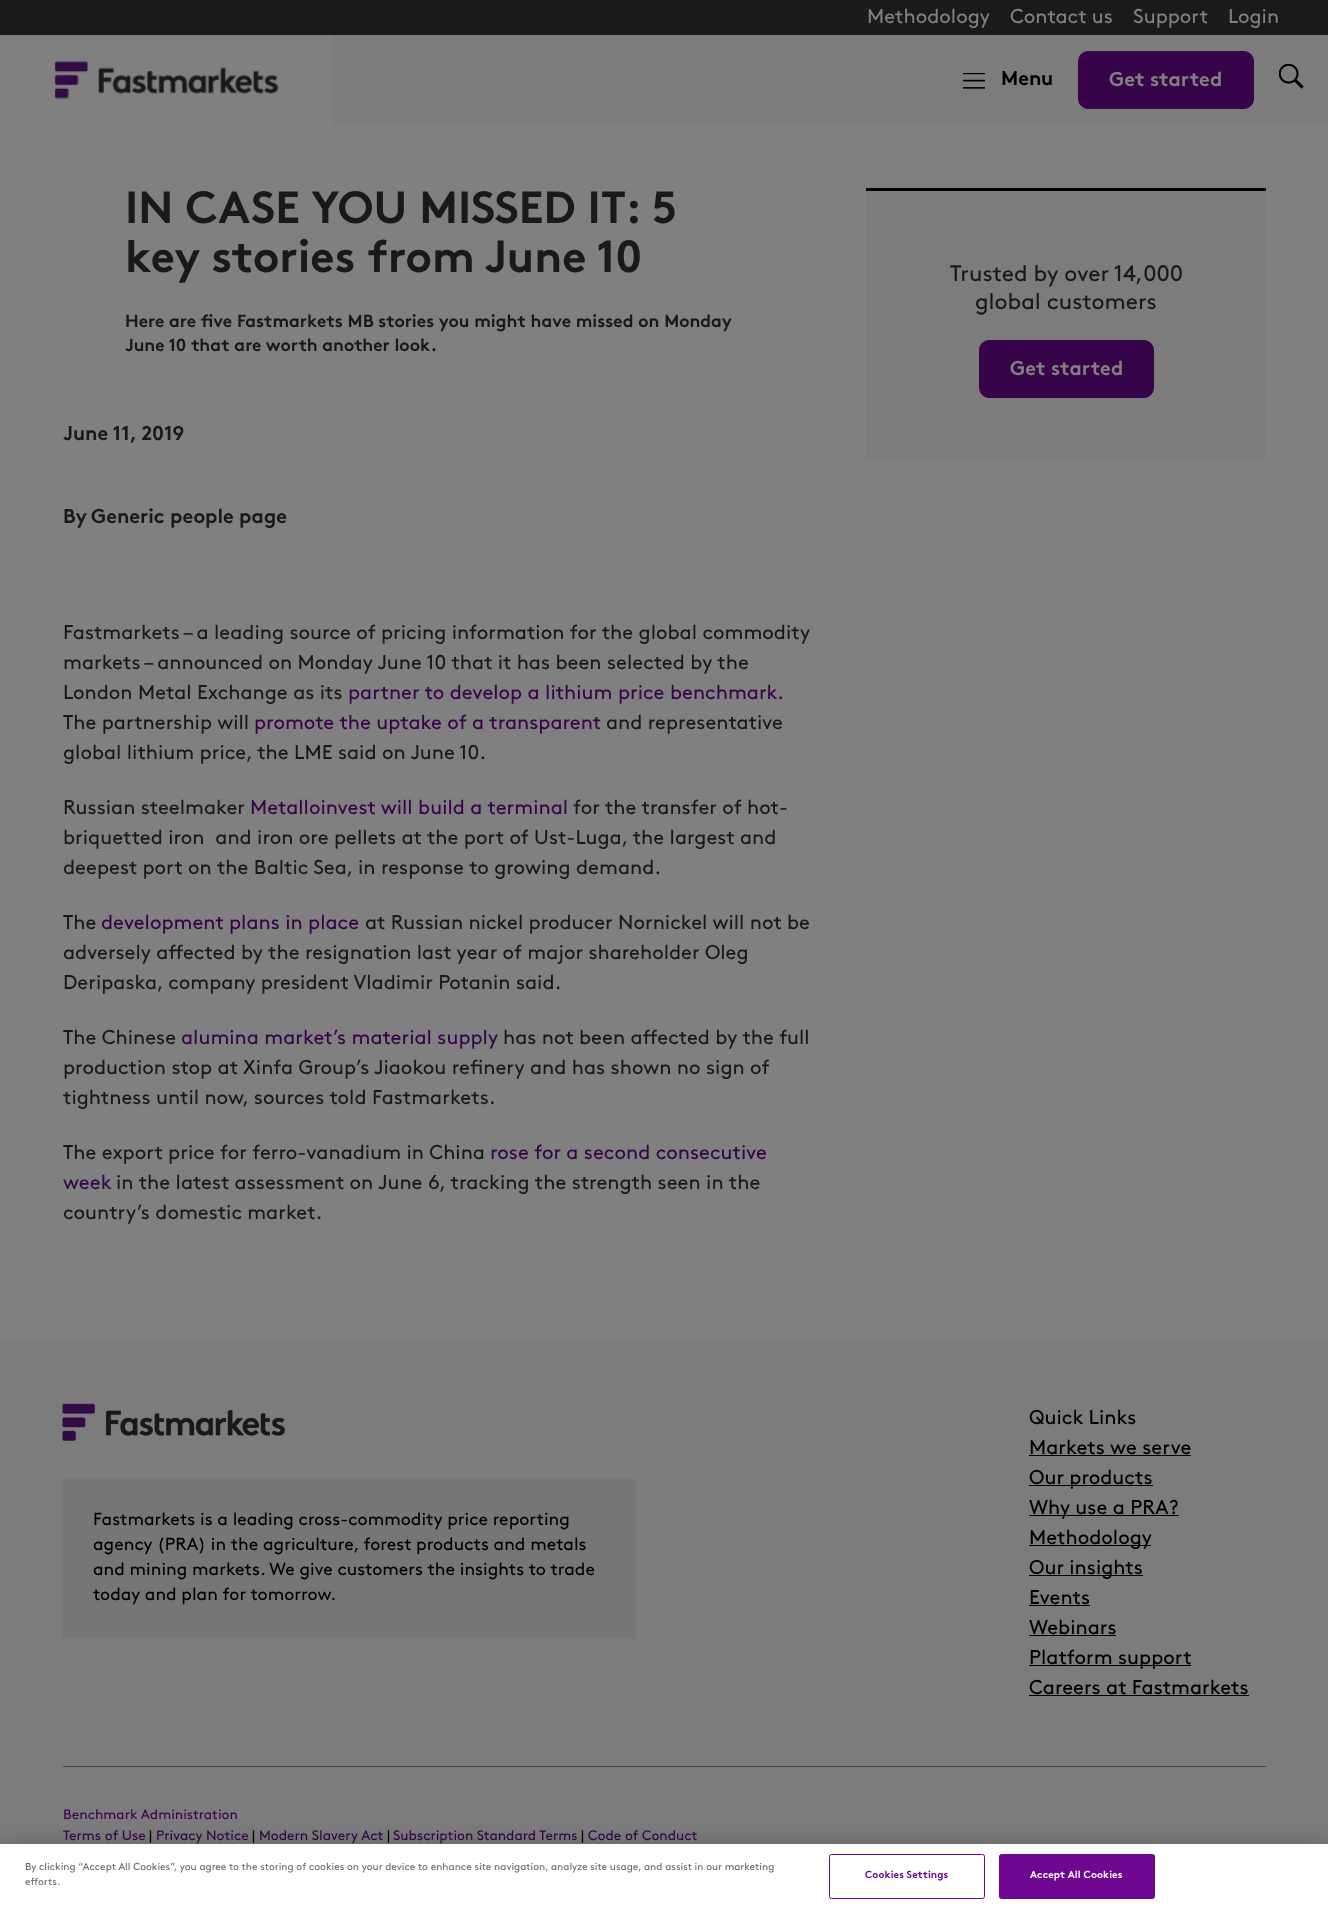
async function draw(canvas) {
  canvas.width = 1328
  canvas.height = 1911
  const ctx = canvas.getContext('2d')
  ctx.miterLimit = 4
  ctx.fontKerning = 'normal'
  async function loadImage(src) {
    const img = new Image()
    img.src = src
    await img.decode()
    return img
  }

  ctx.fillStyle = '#808080'
  ctx.fillRect(0, 0, 1328, 1911)
  ctx.fillStyle = '#1a1a1a'
  ctx.fillRect(0, 0, 1328, 35)
  ctx.font = '20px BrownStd'
  ctx.fillStyle = '#808080'
  ctx.fillText('Methodology', 867, 23)
  ctx.fillText('Contact us', 1010, 23)
  ctx.fillText('Support', 1133, 23)
  ctx.fillText('Login', 1228, 23)
  ctx.fillStyle = '#7c7c7c'
  ctx.fillRect(333, 35, 995, 90)
  ctx.drawImage(await loadImage('image0.png'), 54, 61, 225, 38)
  ctx.drawImage(await loadImage('image1.png'), 963, 73, 22, 16)
  ctx.font = 'bold 20px BrownStd'
  ctx.fillStyle = '#000'
  ctx.fillText('Menu', 1001, 85)
  ctx.fillStyle = '#380449'
  ctx.beginPath()
  ctx.roundRect(1078.5, 51.5, 175, 57, 9.5)
  ctx.fill()
  ctx.strokeStyle = '#380449'
  ctx.stroke()
  ctx.fillStyle = '#808080'
  ctx.fillText('Get started', 1109, 86)
  ctx.drawImage(await loadImage('image2.png'), 1279, 64, 25, 25)
  ctx.font = 'bold 45px BrownStd'
  ctx.fillStyle = '#191919'
  ctx.fillText('IN CASE YOU MISSED IT: 5', 125, 223)
  ctx.fillText('key stories from June 10', 125, 272)
  ctx.font = 'bold 17.5px BrownStd'
  ctx.fillText('Here are five Fastmarkets MB stories you might have missed on Monday', 125, 327)
  ctx.fillText('June 10 that are worth another look.', 125, 351)
  ctx.font = 'bold 20px BrownStd'
  ctx.fillText('June 11, 2019', 63, 440)
  ctx.fillText('By', 63, 523)
  ctx.fillText('Generic people page', 91, 523)
  ctx.font = '20px BrownStd'
  ctx.fillText('Fastmarkets – a leading source of pricing information for the global commodity', 63, 639)
  ctx.fillText('markets – announced on Monday June 10 that it has been selected by the', 63, 669)
  ctx.fillText('London Metal Exchange as its', 63, 699)
  ctx.fillStyle = '#380449'
  ctx.fillText('partner to develop a lithium price benchmark', 348, 699)
  ctx.fillStyle = '#191919'
  ctx.fillText('.', 777, 699)
  ctx.fillText('The partnership will', 63, 729)
  ctx.fillStyle = '#380449'
  ctx.fillText('promote the uptake of a transparent', 254, 729)
  ctx.fillStyle = '#191919'
  ctx.fillText('and representative', 606, 729)
  ctx.fillText('global lithium price, the LME said on June 10.', 63, 759)
  ctx.fillText('Russian steelmaker', 63, 814)
  ctx.fillStyle = '#380449'
  ctx.fillText('Metalloinvest will build a terminal', 250, 814)
  ctx.fillStyle = '#191919'
  ctx.fillText('for the transfer of hot-', 573, 814)
  ctx.fillText('briquetted iron  and iron ore pellets at the port of Ust-Luga, the largest and', 63, 844)
  ctx.fillText('deepest port on the Baltic Sea, in response to growing demand.', 63, 874)
  ctx.fillText('The', 63, 929)
  ctx.fillStyle = '#380449'
  ctx.fillText('development plans in place', 101, 929)
  ctx.fillStyle = '#191919'
  ctx.fillText('at Russian nickel producer Nornickel will not be', 365, 929)
  ctx.fillText('adversely affected by the resignation last year of major shareholder Oleg', 63, 959)
  ctx.fillText('Deripaska, company president Vladimir Potanin said.', 63, 989)
  ctx.fillText('The Chinese', 63, 1044)
  ctx.fillStyle = '#380449'
  ctx.fillText('alumina market’s material supply', 181, 1044)
  ctx.fillStyle = '#191919'
  ctx.fillText('has not been affected by the full', 503, 1044)
  ctx.fillText('production stop at Xinfa Group’s Jiaokou refinery and has shown no sign of', 63, 1074)
  ctx.fillText('tightness until now, sources told Fastmarkets.', 63, 1104)
  ctx.fillText('The export price for ferro-vanadium in China', 63, 1159)
  ctx.fillStyle = '#380449'
  ctx.fillText('rose for a second consecutive', 490, 1159)
  ctx.fillText('week', 63, 1189)
  ctx.fillStyle = '#191919'
  ctx.fillText('in the latest assessment on June 6, tracking the strength seen in the', 116, 1189)
  ctx.fillText('country’s domestic market.', 63, 1219)
  ctx.fillStyle = '#7c7c7c'
  ctx.fillRect(866, 191, 400, 269)
  ctx.fillStyle = '#000'
  ctx.fillRect(866, 188, 400, 3)
  ctx.font = '22.5px BrownStd'
  ctx.fillStyle = '#191919'
  ctx.fillText('Trusted by over 14,000', 950, 281)
  ctx.fillText('global customers', 975, 309)
  ctx.fillStyle = '#380449'
  ctx.beginPath()
  ctx.roundRect(979.5, 340.5, 174, 57, 9.5)
  ctx.fill()
  ctx.stroke()
  ctx.font = 'bold 20px BrownStd'
  ctx.fillStyle = '#808080'
  ctx.fillText('Get started', 1010, 375)
  ctx.fillStyle = '#7c7c7c'
  ctx.fillRect(0, 1341, 1328, 503)
  ctx.drawImage(await loadImage('image3.png'), 62, 1403, 223, 39)
  ctx.fillStyle = '#767676'
  ctx.fillRect(63, 1479, 573, 160)
  ctx.font = '17.5px BrownStd'
  ctx.fillStyle = '#000'
  ctx.fillText('Fastmarkets is a leading cross-commodity price reporting', 93, 1525)
  ctx.fillText('agency (PRA) in the agriculture, forest products and metals', 93, 1550)
  ctx.fillText('and mining markets. We give customers the insights to trade', 93, 1575)
  ctx.fillText('today and plan for tomorrow.', 93, 1600)
  ctx.font = '20px BrownStd'
  ctx.fillText('Quick Links', 1029, 1424)
  ctx.fillText('Markets we serve', 1029, 1454)
  ctx.fillRect(1029, 1455, 162, 1)
  ctx.fillRect(1029, 1485, 124, 1)
  ctx.fillText('Our products', 1029, 1484)
  ctx.fillRect(1029, 1515, 150, 1)
  ctx.fillText('Why use a PRA?', 1029, 1514)
  ctx.fillRect(1029, 1545, 122, 1)
  ctx.fillText('Methodology', 1029, 1544)
  ctx.fillRect(1029, 1575, 114, 1)
  ctx.fillText('Our insights', 1029, 1574)
  ctx.fillText('Events', 1029, 1604)
  ctx.fillRect(1029, 1605, 61, 1)
  ctx.fillText('Webinars', 1029, 1634)
  ctx.fillRect(1029, 1635, 87, 1)
  ctx.fillRect(1029, 1665, 162, 1)
  ctx.fillText('Platform support', 1029, 1664)
  ctx.fillText('Careers at Fastmarkets', 1029, 1694)
  ctx.fillRect(1029, 1695, 220, 1)
  ctx.fillStyle = '#464646'
  ctx.fillRect(63, 1766, 1203, 1)
  ctx.font = '13.75px BrownStd'
  ctx.fillStyle = '#380449'
  ctx.fillText('Benchmark Administration', 63, 1819)
  ctx.fillText('Terms of Use', 63, 1840)
  ctx.fillStyle = '#000'
  ctx.fillText('|', 149, 1840)
  ctx.fillStyle = '#380449'
  ctx.fillText('Privacy Notice', 156, 1840)
  ctx.fillStyle = '#000'
  ctx.fillText('|', 252, 1840)
  ctx.fillStyle = '#380449'
  ctx.fillText('Modern Slavery Act', 259, 1840)
  ctx.fillStyle = '#000'
  ctx.fillText('|', 387, 1840)
  ctx.fillStyle = '#380449'
  ctx.fillText('Subscription Standard Terms', 393, 1840)
  ctx.fillStyle = '#000'
  ctx.fillText('|', 581, 1840)
  ctx.fillStyle = '#380449'
  ctx.fillText('Code of Conduct', 588, 1840)
  ctx.fillStyle = '#00000033'
  ctx.filter = 'blur(11px)'
  ctx.beginPath()
  ctx.rect(0, 1844, 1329, 67)
  ctx.fill()
  ctx.filter = 'none'
  ctx.fillStyle = '#fff'
  ctx.fillRect(0, 1844, 1328, 67)
  ctx.font = '10.15px BrownStd'
  ctx.fillStyle = '#696969'
  ctx.fillText('By clicking “Accept All Cookies”, you agree to the storing of cookies on your device to enhance site navigation, analyze site usage, and assist in our marketing', 25, 1870)
  ctx.fillText('efforts.', 25, 1885)
  ctx.beginPath()
  ctx.roundRect(829.5, 1854.5, 155, 44, 2)
  ctx.strokeStyle = '#6f0791'
  ctx.stroke()
  ctx.letterSpacing = '0.1px'
  ctx.font = 'bold 10.15px BrownStd'
  ctx.fillStyle = '#6f0791'
  ctx.fillText('Cookies Settings', 865, 1878)
  ctx.beginPath()
  ctx.roundRect(999.5, 1854.5, 155, 44, 2)
  ctx.fill()
  ctx.stroke()
  ctx.fillStyle = '#fff'
  ctx.fillText('Accept All Cookies', 1030, 1878)
}

draw(document.querySelector('canvas'))
